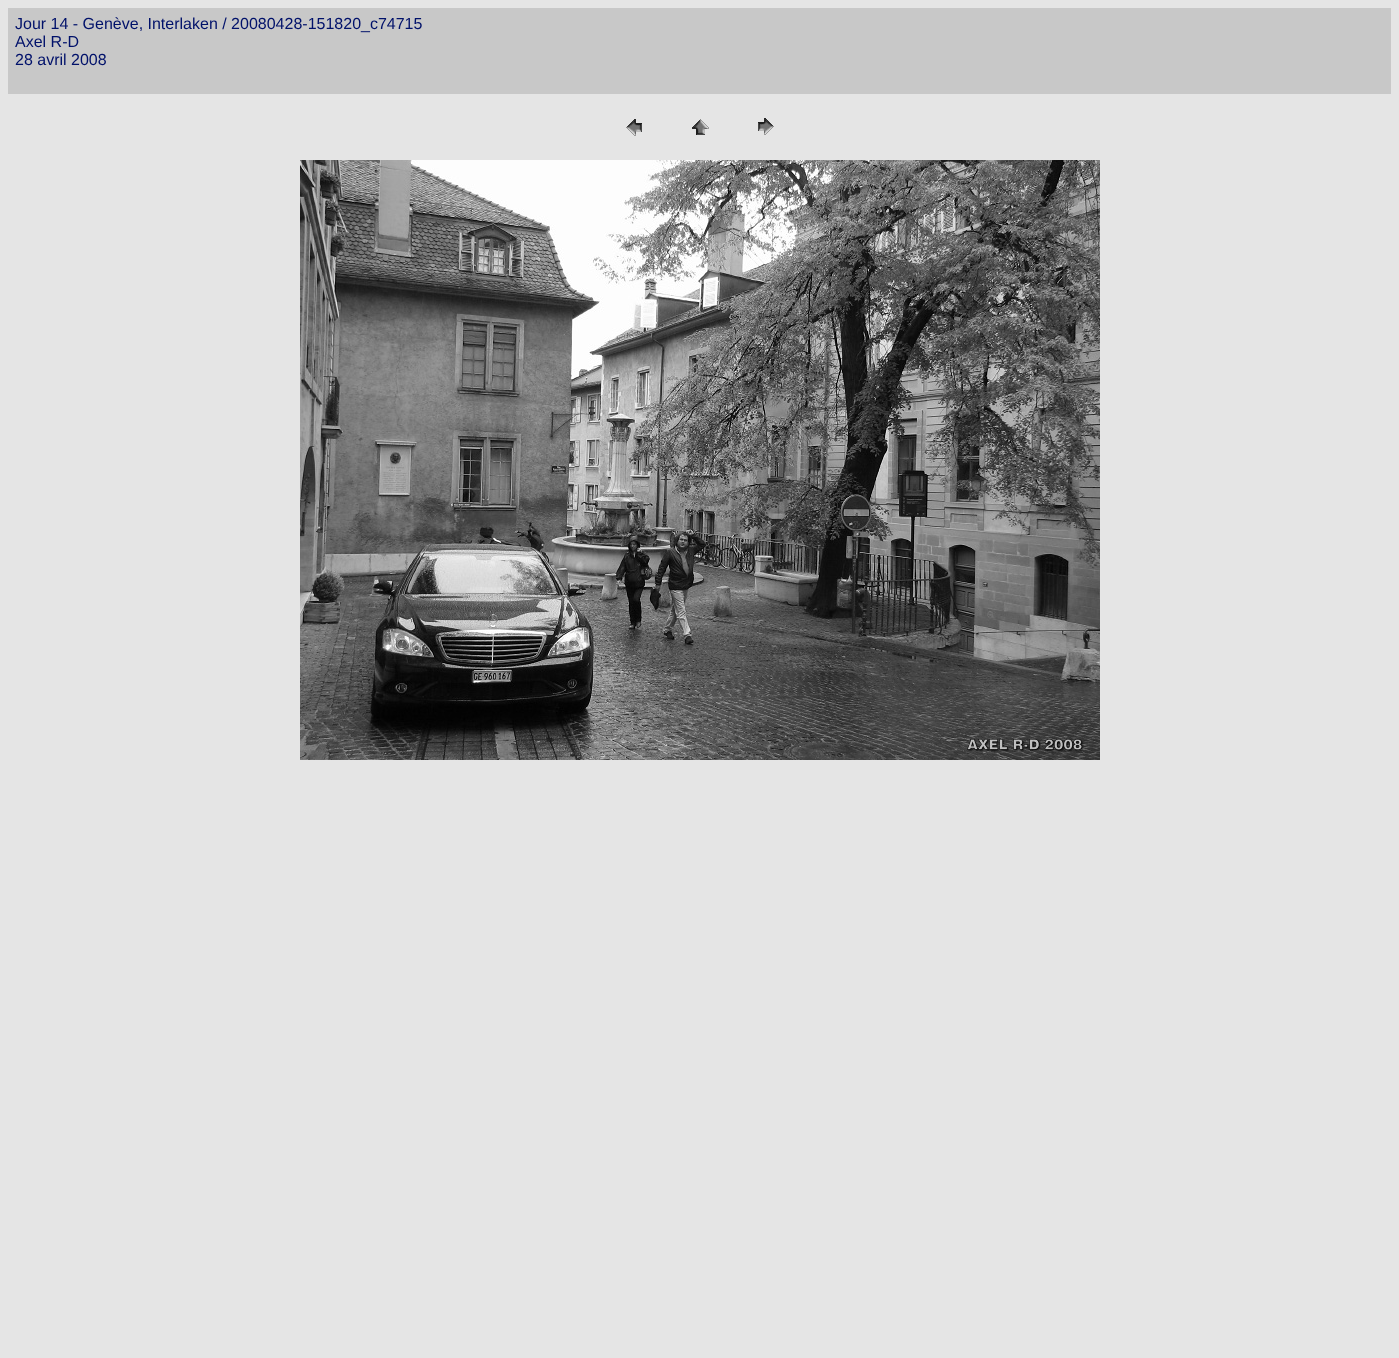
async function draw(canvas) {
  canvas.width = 1399
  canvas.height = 1358
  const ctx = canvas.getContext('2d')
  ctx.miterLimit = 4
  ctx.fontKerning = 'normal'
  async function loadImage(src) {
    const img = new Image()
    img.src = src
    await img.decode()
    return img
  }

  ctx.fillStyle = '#e5e5e5'
  ctx.fillRect(0, 0, 1399, 1358)
  ctx.fillStyle = '#c8c8c8'
  ctx.fillRect(8, 8, 1383, 86)
  ctx.font = '16px Liberation Sans'
  ctx.fillStyle = '#00116a'
  ctx.fillText('Jour 14 - Genève, Interlaken / 20080428-151820_c74715', 15, 29)
  ctx.fillText('Axel R-D', 15, 47)
  ctx.fillText('28 avril 2008', 15, 65)
  ctx.drawImage(await loadImage('image0.png'), 626, 119, 16, 17)
  ctx.drawImage(await loadImage('image1.png'), 692, 119, 17, 16)
  ctx.drawImage(await loadImage('image2.png'), 758, 118, 16, 17)
  ctx.drawImage(await loadImage('image3.png'), 300, 160, 800, 600)
}

draw(document.querySelector('canvas'))
